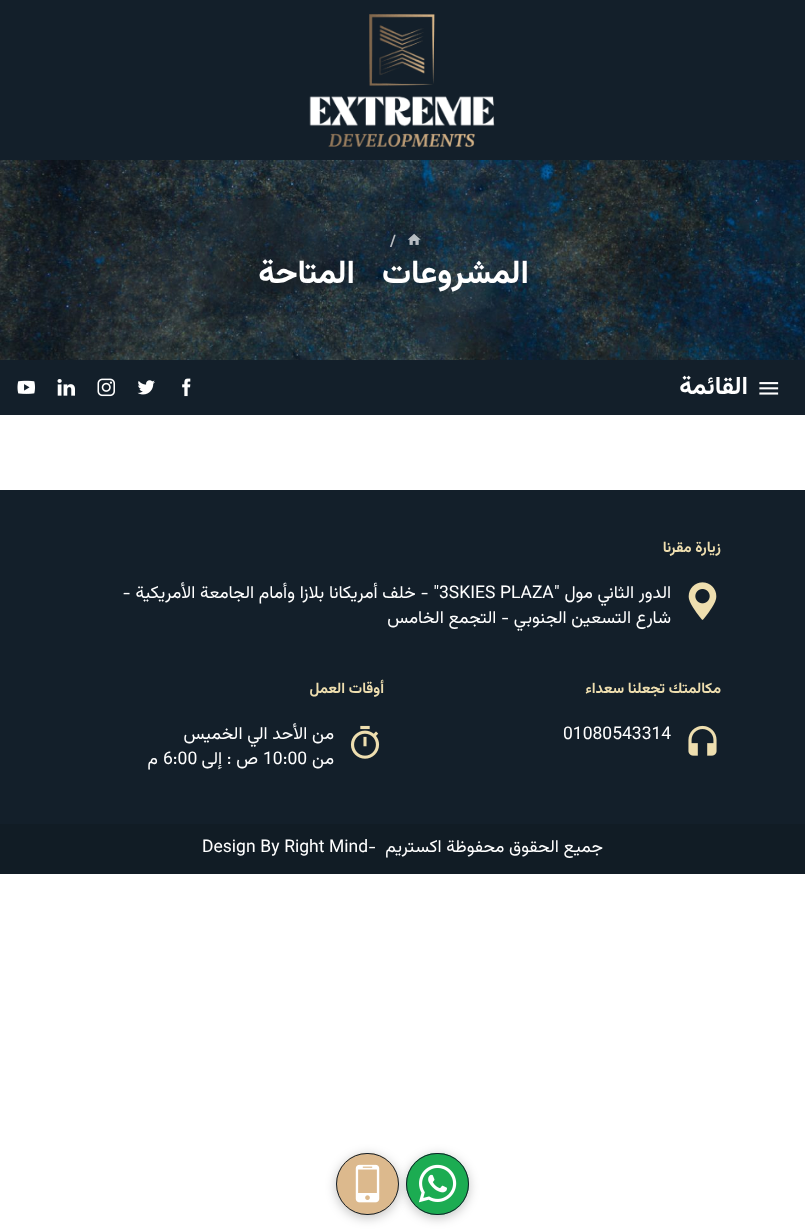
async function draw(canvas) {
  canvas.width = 805
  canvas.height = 1231
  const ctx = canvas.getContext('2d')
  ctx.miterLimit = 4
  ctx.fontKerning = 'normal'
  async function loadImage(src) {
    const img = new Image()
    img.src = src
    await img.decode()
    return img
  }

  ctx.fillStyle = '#fff'
  ctx.fillRect(0, 0, 805, 1231)
  ctx.fillStyle = '#131f2a'
  ctx.fillRect(0, 0, 805, 160)
  ctx.drawImage(await loadImage('image0.png'), 309, 14, 186, 133)
  ctx.drawImage(await loadImage('image1.png'), 0, 160, 805, 200)
  ctx.drawImage(await loadImage('image2.png'), 407, 233, 14, 12)
  ctx.font = 'bold 16px Vazirmatn'
  ctx.fillStyle = '#b9bec2'
  ctx.fillText('/', 390, 246)
  ctx.letterSpacing = '-1.25px'
  ctx.wordSpacing = '20px'
  ctx.direction = 'rtl'
  ctx.font = 'bold 32.5px Vazirmatn'
  ctx.fillStyle = '#fff'
  ctx.fillText('المشروعات المتاحة', 529, 283)
  ctx.fillStyle = '#131f2a'
  ctx.fillRect(0, 360, 805, 55)
  ctx.drawImage(await loadImage('image3.png'), 759, 382, 20, 13)
  ctx.letterSpacing = '0px'
  ctx.wordSpacing = '0px'
  ctx.font = 'bold 25px Vazirmatn'
  ctx.fillStyle = '#fff'
  ctx.fillText('القائمة', 748, 394)
  ctx.drawImage(await loadImage('image4.png'), 182, 378, 9, 19)
  ctx.drawImage(await loadImage('image5.png'), 137, 380, 18, 15)
  ctx.drawImage(await loadImage('image6.png'), 97, 378, 18, 19)
  ctx.drawImage(await loadImage('image7.png'), 57, 379, 18, 17)
  ctx.drawImage(await loadImage('image8.png'), 17, 380, 18, 14)
  ctx.fillStyle = '#131f2a'
  ctx.fillRect(0, 490, 805, 334)
  ctx.font = 'bold 14.9px Vazirmatn'
  ctx.fillStyle = '#eedeaf'
  ctx.fillText('زيارة مقرنا', 721, 552)
  ctx.drawImage(await loadImage('image9.png'), 688, 582, 29, 38)
  ctx.font = '17.5px Vazirmatn'
  ctx.fillStyle = '#fff'
  ctx.fillText('الدور الثاني مول "', 671, 598)
  ctx.direction = 'ltr'
  ctx.fillText('3SKIES PLAZA', 439, 598)
  ctx.direction = 'rtl'
  ctx.fillText('" - خلف أمريكانا بلازا وأمام الجامعة الأمريكية -', 439, 598)
  ctx.fillText('شارع التسعين الجنوبي - التجمع الخامس', 671, 623)
  ctx.font = 'bold 14.9px Vazirmatn'
  ctx.fillStyle = '#eedeaf'
  ctx.fillText('مكالمتك تجعلنا سعداء', 721, 693)
  ctx.drawImage(await loadImage('image10.png'), 688, 725, 29, 31)
  ctx.direction = 'ltr'
  ctx.font = '17.5px Vazirmatn'
  ctx.fillStyle = '#fff'
  ctx.fillText('01080543314', 563, 739)
  ctx.direction = 'rtl'
  ctx.font = 'bold 14.9px Vazirmatn'
  ctx.fillStyle = '#eedeaf'
  ctx.fillText('أوقات العمل', 384, 693)
  ctx.drawImage(await loadImage('image11.png'), 350, 725, 30, 34)
  ctx.font = '17.5px Vazirmatn'
  ctx.fillStyle = '#fff'
  ctx.fillText('من الأحد الي الخميس', 334, 739)
  ctx.fillText('من', 334, 764)
  ctx.direction = 'ltr'
  ctx.fillText('10:00', 263, 764)
  ctx.direction = 'rtl'
  ctx.fillText('ص : إلى', 258, 764)
  ctx.direction = 'ltr'
  ctx.fillText('6:00', 163, 764)
  ctx.direction = 'rtl'
  ctx.fillText('م', 158, 764)
  ctx.fillStyle = '#111c25'
  ctx.fillRect(0, 824, 805, 50)
  ctx.fillStyle = '#fff'
  ctx.fillText('جميع الحقوق محفوظة اكستريم', 603, 852)
  ctx.direction = 'ltr'
  ctx.fillText('-', 368, 852)
  ctx.fillText('Design By Right Mind', 202, 852)
  ctx.fillStyle = '#0000003d'
  ctx.filter = 'blur(5.5px)'
  ctx.beginPath()
  ctx.roundRect(406, 1155, 63, 63, 31.5)
  ctx.fill()
  ctx.filter = 'none'
  ctx.fillStyle = '#1cac52'
  ctx.beginPath()
  ctx.roundRect(406, 1153, 63, 62, 31)
  ctx.fill()
  ctx.drawImage(await loadImage('image12.png'), 418, 1164, 39, 39)
  ctx.beginPath()
  ctx.roundRect(406.5, 1153.5, 62, 61, 30.5)
  ctx.strokeStyle = '#131f2a'
  ctx.stroke()
  ctx.fillStyle = '#0000003d'
  ctx.filter = 'blur(5.5px)'
  ctx.beginPath()
  ctx.roundRect(336, 1155, 63, 63, 31.5)
  ctx.fill()
  ctx.filter = 'none'
  ctx.fillStyle = '#dcb98d'
  ctx.beginPath()
  ctx.roundRect(336, 1153, 63, 62, 31)
  ctx.fill()
  ctx.drawImage(await loadImage('image13.png'), 355, 1164, 25, 39)
  ctx.beginPath()
  ctx.roundRect(336.5, 1153.5, 62, 61, 30.5)
  ctx.stroke()
}

draw(document.querySelector('canvas'))
